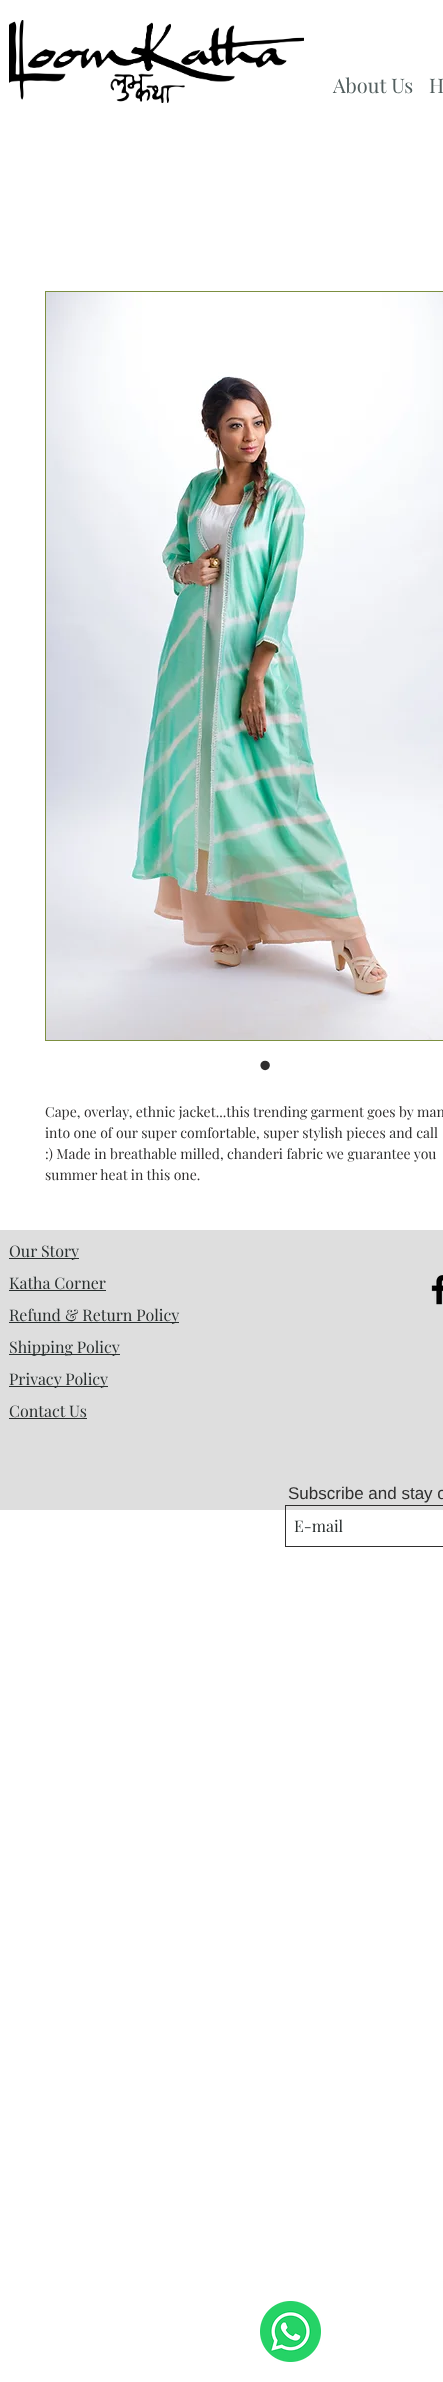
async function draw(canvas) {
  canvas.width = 443
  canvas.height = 2382
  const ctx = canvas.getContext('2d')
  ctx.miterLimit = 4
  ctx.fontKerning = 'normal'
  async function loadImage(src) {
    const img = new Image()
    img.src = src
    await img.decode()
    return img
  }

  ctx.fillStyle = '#fff'
  ctx.fillRect(0, 0, 443, 2382)
  ctx.drawImage(await loadImage('image0.png'), 9, 20, 295, 83)
  ctx.font = '20px Playfair Display'
  ctx.fillStyle = '#525e5e'
  ctx.fillText('About Us', 333, 93)
  ctx.fillText('H', 429, 93)
  ctx.strokeStyle = '#7c8f40'
  ctx.strokeRect(45.5, 291.5, 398, 749)
  ctx.drawImage(await loadImage('image1.png'), 46, 292, 397, 748)
  ctx.font = '35px Liberation Sans'
  ctx.fillStyle = '#2f2e2e'
  ctx.fillText('•', 259, 1077)
  ctx.font = '14px Playfair Display'
  ctx.fillText('Cape, overlay, ethnic jacket...this trending garment goes by man', 45, 1117)
  ctx.fillText('into one of our super comfortable, super stylish pieces and call', 45, 1138)
  ctx.fillText(':) Made in breathable milled, chanderi fabric we guarantee you', 45, 1159)
  ctx.fillText('summer heat in this one.', 45, 1180)
  ctx.fillStyle = '#dedede'
  ctx.fillRect(0, 1230, 443, 280)
  ctx.fillStyle = '#292f2f'
  ctx.fillRect(9, 1258, 70, 1)
  ctx.font = '16px Playfair Display'
  ctx.fillText('Our Story', 9, 1257)
  ctx.fillText('Katha Corner', 9, 1289)
  ctx.fillRect(9, 1290, 97, 1)
  ctx.fillRect(9, 1322, 170, 1)
  ctx.fillText('Refund & Return Policy', 9, 1321)
  ctx.fillRect(9, 1354, 111, 1)
  ctx.fillText('Shipping Policy', 9, 1353)
  ctx.fillRect(9, 1386, 99, 1)
  ctx.fillText('Privacy Policy', 9, 1385)
  ctx.fillText('Contact Us', 9, 1417)
  ctx.fillRect(9, 1418, 78, 1)
  ctx.drawImage(await loadImage('image2.png'), 431, 1275, 12, 30)
  ctx.font = '17px Liberation Sans'
  ctx.fillStyle = '#2f2e2e'
  ctx.fillText('Subscribe and stay o', 288, 1499)
  ctx.strokeStyle = '#2f2e2e'
  ctx.strokeRect(285.5, 1505.5, 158, 41)
  ctx.font = '16px Playfair Display'
  ctx.fillStyle = '#292f2f'
  ctx.fillText('E-mail', 294, 1532)
  ctx.drawImage(await loadImage('image3.png'), 260, 2301, 61, 61)
}

draw(document.querySelector('canvas'))
